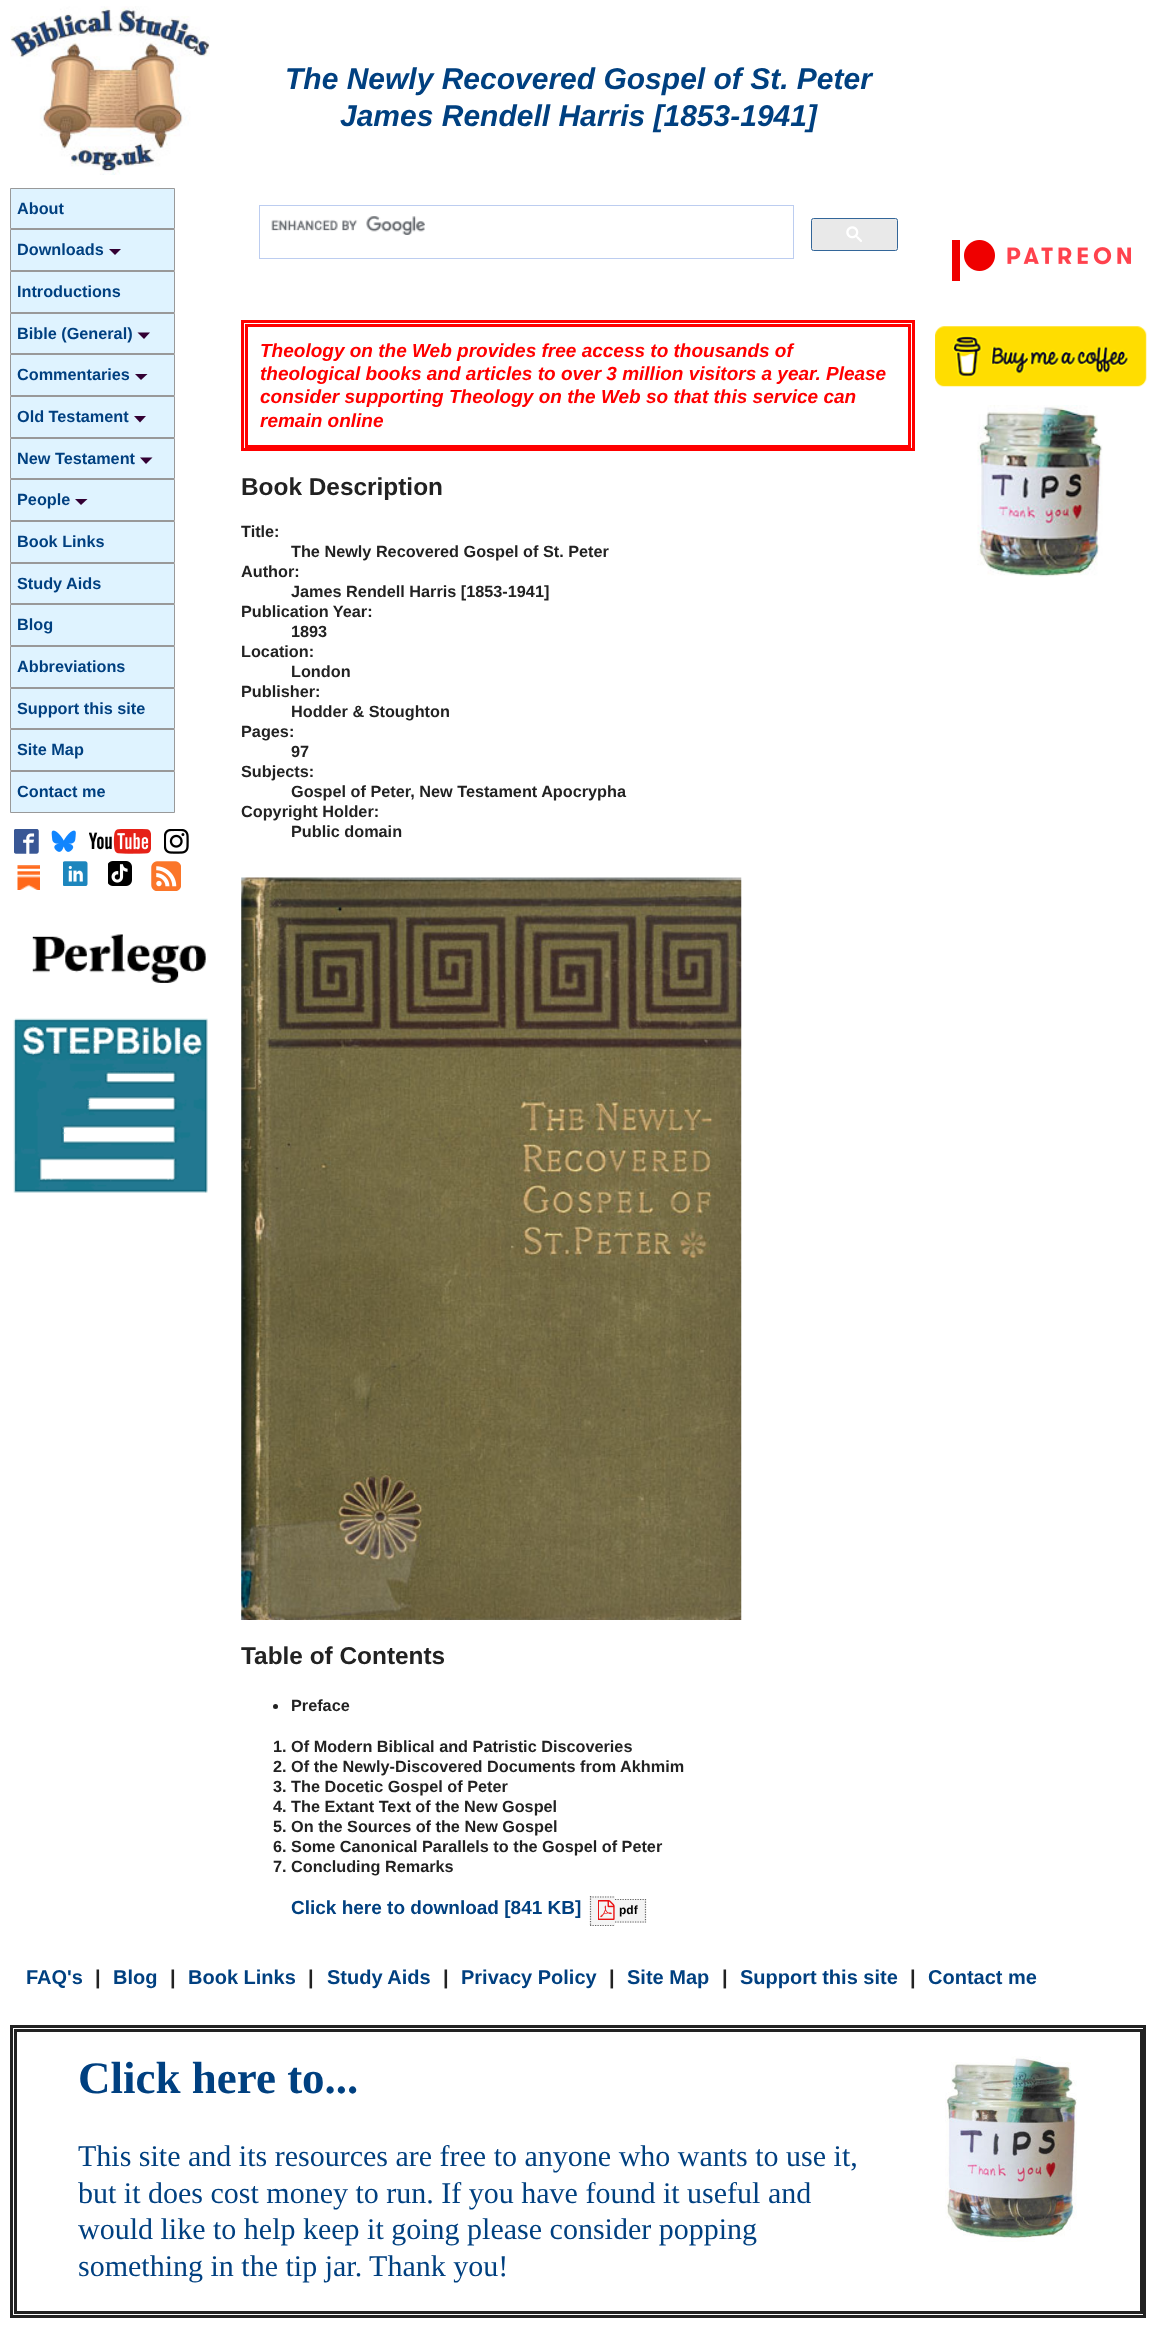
async function draw(canvas) {
  canvas.width = 1156
  canvas.height = 2346
  const ctx = canvas.getContext('2d')
  ctx.miterLimit = 4
  ctx.fontKerning = 'normal'
  async function loadImage(src) {
    const img = new Image()
    img.src = src
    await img.decode()
    return img
  }

  ctx.fillStyle = '#fff'
  ctx.fillRect(0, 0, 1156, 2346)
  ctx.drawImage(await loadImage('image0.png'), 10, 6, 200, 169)
  ctx.font = 'italic bold 30px Liberation Sans'
  ctx.fillStyle = '#004080'
  ctx.fillText('The Newly Recovered Gospel of St. Peter', 285, 89)
  ctx.fillText('James Rendell Harris [1853-1941]', 340, 126)
  ctx.fillStyle = '#dff3ff'
  ctx.beginPath()
  ctx.rect(10.5, 188.5, 164, 40)
  ctx.fill()
  ctx.strokeStyle = '#999'
  ctx.stroke()
  ctx.font = 'bold 16.25px Liberation Sans'
  ctx.fillStyle = '#004080'
  ctx.fillText('About', 17, 214)
  ctx.fillStyle = '#dff3ff'
  ctx.beginPath()
  ctx.rect(10.5, 229.5, 164, 41)
  ctx.fill()
  ctx.stroke()
  ctx.fillStyle = '#004080'
  ctx.fillText('Downloads', 17, 255)
  ctx.fillStyle = '#303'
  ctx.beginPath()
  ctx.moveTo(109, 249)
  ctx.lineTo(121, 249)
  ctx.lineTo(115, 255)
  ctx.closePath()
  ctx.fill()
  ctx.fillStyle = '#dff3ff'
  ctx.beginPath()
  ctx.rect(10.5, 271.5, 164, 41)
  ctx.fill()
  ctx.stroke()
  ctx.fillStyle = '#004080'
  ctx.fillText('Introductions', 17, 297)
  ctx.fillStyle = '#dff3ff'
  ctx.beginPath()
  ctx.rect(10.5, 313.5, 164, 40)
  ctx.fill()
  ctx.stroke()
  ctx.fillStyle = '#004080'
  ctx.fillText('Bible (General)', 17, 339)
  ctx.fillStyle = '#303'
  ctx.beginPath()
  ctx.moveTo(137.5, 332.5)
  ctx.lineTo(150, 332.5)
  ctx.lineTo(144, 339)
  ctx.closePath()
  ctx.fill()
  ctx.fillStyle = '#dff3ff'
  ctx.beginPath()
  ctx.rect(10.5, 354.5, 164, 41)
  ctx.fill()
  ctx.stroke()
  ctx.fillStyle = '#004080'
  ctx.fillText('Commentaries', 17, 380)
  ctx.fillStyle = '#303'
  ctx.beginPath()
  ctx.moveTo(135, 374)
  ctx.lineTo(147.5, 374)
  ctx.lineTo(141, 380)
  ctx.closePath()
  ctx.fill()
  ctx.fillStyle = '#dff3ff'
  ctx.beginPath()
  ctx.rect(10.5, 396.5, 164, 41)
  ctx.fill()
  ctx.stroke()
  ctx.fillStyle = '#004080'
  ctx.fillText('Old Testament', 17, 422)
  ctx.fillStyle = '#303'
  ctx.beginPath()
  ctx.moveTo(134, 416)
  ctx.lineTo(146, 416)
  ctx.lineTo(140, 422.5)
  ctx.closePath()
  ctx.fill()
  ctx.fillStyle = '#dff3ff'
  ctx.beginPath()
  ctx.rect(10.5, 438.5, 164, 40)
  ctx.fill()
  ctx.stroke()
  ctx.fillStyle = '#004080'
  ctx.fillText('New Testament', 17, 464)
  ctx.fillStyle = '#303'
  ctx.beginPath()
  ctx.moveTo(140, 457.5)
  ctx.lineTo(152.5, 457.5)
  ctx.lineTo(146, 464)
  ctx.closePath()
  ctx.fill()
  ctx.fillStyle = '#dff3ff'
  ctx.beginPath()
  ctx.rect(10.5, 479.5, 164, 41)
  ctx.fill()
  ctx.stroke()
  ctx.fillStyle = '#004080'
  ctx.fillText('People', 17, 505)
  ctx.fillStyle = '#303'
  ctx.beginPath()
  ctx.moveTo(75, 499)
  ctx.lineTo(87.5, 499)
  ctx.lineTo(81, 505)
  ctx.closePath()
  ctx.fill()
  ctx.fillStyle = '#dff3ff'
  ctx.beginPath()
  ctx.rect(10.5, 521.5, 164, 41)
  ctx.fill()
  ctx.stroke()
  ctx.fillStyle = '#004080'
  ctx.fillText('Book Links', 17, 547)
  ctx.fillStyle = '#dff3ff'
  ctx.beginPath()
  ctx.rect(10.5, 563.5, 164, 40)
  ctx.fill()
  ctx.stroke()
  ctx.fillStyle = '#004080'
  ctx.fillText('Study Aids', 17, 589)
  ctx.fillStyle = '#dff3ff'
  ctx.beginPath()
  ctx.rect(10.5, 604.5, 164, 41)
  ctx.fill()
  ctx.stroke()
  ctx.fillStyle = '#004080'
  ctx.fillText('Blog', 17, 630)
  ctx.fillStyle = '#dff3ff'
  ctx.beginPath()
  ctx.rect(10.5, 646.5, 164, 41)
  ctx.fill()
  ctx.stroke()
  ctx.fillStyle = '#004080'
  ctx.fillText('Abbreviations', 17, 672)
  ctx.fillStyle = '#dff3ff'
  ctx.beginPath()
  ctx.rect(10.5, 688.5, 164, 40)
  ctx.fill()
  ctx.stroke()
  ctx.fillStyle = '#004080'
  ctx.fillText('Support this site', 17, 714)
  ctx.fillStyle = '#dff3ff'
  ctx.beginPath()
  ctx.rect(10.5, 729.5, 164, 41)
  ctx.fill()
  ctx.stroke()
  ctx.fillStyle = '#004080'
  ctx.fillText('Site Map', 17, 755)
  ctx.fillStyle = '#dff3ff'
  ctx.beginPath()
  ctx.rect(10.5, 771.5, 164, 41)
  ctx.fill()
  ctx.stroke()
  ctx.fillStyle = '#004080'
  ctx.fillText('Contact me', 17, 797)
  ctx.drawImage(await loadImage('image1.png'), 14, 829, 25, 25)
  ctx.drawImage(await loadImage('image2.png'), 51, 830, 25, 22)
  ctx.drawImage(await loadImage('image3.png'), 89, 829, 62, 25)
  ctx.drawImage(await loadImage('image4.png'), 164, 829, 25, 25)
  ctx.drawImage(await loadImage('image5.png'), 17, 865, 23, 25)
  ctx.drawImage(await loadImage('image6.png'), 63, 861, 25, 25)
  ctx.drawImage(await loadImage('image7.png'), 108, 861, 24, 25)
  ctx.drawImage(await loadImage('image8.png'), 151, 861, 30, 30)
  ctx.drawImage(await loadImage('image9.png'), 32, 934, 174, 49)
  ctx.drawImage(await loadImage('image10.png'), 13, 1018, 195, 175)
  ctx.strokeStyle = '#bccdf0'
  ctx.strokeRect(259.5, 205.5, 534, 53)
  ctx.drawImage(await loadImage('image11.png'), 271, 216, 154, 19)
  ctx.fillStyle = '#e9e9e9'
  ctx.beginPath()
  ctx.roundRect(811.5, 218.5, 86, 32, 2)
  ctx.fill()
  ctx.strokeStyle = '#369'
  ctx.stroke()
  ctx.drawImage(await loadImage('image12.png'), 846, 226, 16, 16)
  ctx.strokeStyle = '#f00'
  ctx.lineWidth = 3
  ctx.strokeRect(242.5, 321.5, 671, 128)
  ctx.strokeRect(246.5, 325.5, 663, 121)
  ctx.font = 'italic bold 19px Liberation Sans'
  ctx.fillStyle = '#f00'
  ctx.fillText('Theology on the Web provides free access to thousands of', 260, 357)
  ctx.fillText('theological books and articles to over 3 million visitors a year. Please', 260, 380)
  ctx.fillText('consider supporting Theology on the Web so that this service can', 260, 403)
  ctx.fillText('remain online', 260, 427)
  ctx.font = 'bold 24.4px Liberation Sans'
  ctx.fillStyle = '#222'
  ctx.fillText('Book Description', 241, 495)
  ctx.font = 'bold 16.25px Liberation Sans'
  ctx.fillText('Title:', 241, 537)
  ctx.fillText('The Newly Recovered Gospel of St. Peter', 291, 557)
  ctx.fillText('Author:', 241, 577)
  ctx.fillText('James Rendell Harris [1853-1941]', 291, 597)
  ctx.fillText('Publication Year:', 241, 617)
  ctx.fillText('1893', 291, 637)
  ctx.fillText('Location:', 241, 657)
  ctx.fillText('London', 291, 677)
  ctx.fillText('Publisher:', 241, 697)
  ctx.fillText('Hodder & Stoughton', 291, 717)
  ctx.fillText('Pages:', 241, 737)
  ctx.fillText('97', 291, 757)
  ctx.fillText('Subjects:', 241, 777)
  ctx.fillText('Gospel of Peter, New Testament Apocrypha', 291, 797)
  ctx.fillText('Copyright Holder:', 241, 817)
  ctx.fillText('Public domain', 291, 837)
  ctx.drawImage(await loadImage('image13.png'), 241, 877, 501, 743)
  ctx.font = 'bold 24.4px Liberation Sans'
  ctx.fillText('Table of Contents', 241, 1664)
  ctx.beginPath()
  ctx.arc(275.5, 1706.5, 2.5, 0, 2 * Math.PI)
  ctx.fill()
  ctx.font = 'bold 16.25px Liberation Sans'
  ctx.fillText('Preface', 291, 1711)
  ctx.fillText('1. Of Modern Biblical and Patristic Discoveries', 273, 1752)
  ctx.fillText('2. Of the Newly-Discovered Documents from Akhmim', 273, 1772)
  ctx.fillText('3. The Docetic Gospel of Peter', 273, 1792)
  ctx.fillText('4. The Extant Text of the New Gospel', 273, 1812)
  ctx.fillText('5. On the Sources of the New Gospel', 273, 1832)
  ctx.fillText('6. Some Canonical Parallels to the Gospel of Peter', 273, 1852)
  ctx.fillText('7. Concluding Remarks', 273, 1872)
  ctx.font = 'bold 19px Liberation Sans'
  ctx.fillStyle = '#004080'
  ctx.fillText('Click here to download [841 KB]', 291, 1914)
  ctx.fillStyle = '#f4f4f4'
  ctx.fillRect(590, 1896, 25, 30)
  ctx.beginPath()
  ctx.moveTo(590, 1897)
  ctx.lineTo(615, 1897)
  ctx.moveTo(590, 1925.5)
  ctx.lineTo(615, 1925.5)
  ctx.moveTo(590.5, 1896)
  ctx.lineTo(590.5, 1926)
  ctx.strokeStyle = '#666'
  ctx.lineWidth = 1.2
  ctx.setLineDash([1.25, 1.25])
  ctx.stroke()
  ctx.drawImage(await loadImage('image14.png'), 598, 1900, 17, 20)
  ctx.fillRect(615, 1899, 31, 24)
  ctx.beginPath()
  ctx.moveTo(615, 1899.5)
  ctx.lineTo(646, 1899.5)
  ctx.moveTo(645.5, 1899)
  ctx.lineTo(645.5, 1922.5)
  ctx.moveTo(615, 1922)
  ctx.lineTo(646, 1922)
  ctx.stroke()
  ctx.font = 'bold 12px Liberation Sans'
  ctx.fillStyle = '#000'
  ctx.fillText('pdf', 619, 1914)
  ctx.drawImage(await loadImage('image15.png'), 952, 240, 179, 41)
  ctx.drawImage(await loadImage('image16.png'), 935, 326, 212, 61)
  ctx.drawImage(await loadImage('image17.png'), 977, 405, 126, 172)
  ctx.font = 'bold 20px Liberation Sans'
  ctx.fillStyle = '#004080'
  ctx.fillText('FAQ\'s', 26, 1984)
  ctx.fillStyle = '#222'
  ctx.fillText('|', 95, 1984)
  ctx.fillStyle = '#004080'
  ctx.fillText('Blog', 113, 1984)
  ctx.fillStyle = '#222'
  ctx.fillText('|', 170, 1984)
  ctx.fillStyle = '#004080'
  ctx.fillText('Book Links', 188, 1984)
  ctx.fillStyle = '#222'
  ctx.fillText('|', 308, 1984)
  ctx.fillStyle = '#004080'
  ctx.fillText('Study Aids', 327, 1984)
  ctx.fillStyle = '#222'
  ctx.fillText('|', 443, 1984)
  ctx.fillStyle = '#004080'
  ctx.fillText('Privacy Policy', 461, 1984)
  ctx.fillStyle = '#222'
  ctx.fillText('|', 609, 1984)
  ctx.fillStyle = '#004080'
  ctx.fillText('Site Map', 627, 1984)
  ctx.fillStyle = '#222'
  ctx.fillText('|', 722, 1984)
  ctx.fillStyle = '#004080'
  ctx.fillText('Support this site', 740, 1984)
  ctx.fillStyle = '#222'
  ctx.fillText('|', 910, 1984)
  ctx.fillStyle = '#004080'
  ctx.fillText('Contact me', 928, 1984)
  ctx.strokeStyle = '#222'
  ctx.lineWidth = 3
  ctx.setLineDash([])
  ctx.strokeRect(11.5, 2026.5, 1133, 290)
  ctx.strokeRect(15.5, 2030.5, 1126, 282)
  ctx.font = 'bold 45px Liberation Serif'
  ctx.fillText('Click here to...', 78, 2093)
  ctx.drawImage(await loadImage('image18.png'), 945, 2056, 132, 186)
  ctx.font = '30px Liberation Serif'
  ctx.fillText('This site and its resources are free to anyone who wants to use it,', 78, 2166)
  ctx.fillText('but it does cost money to run. If you have found it useful and', 78, 2203)
  ctx.fillText('would like to help keep it going please consider popping', 78, 2239)
  ctx.fillText('something in the tip jar. Thank you!', 78, 2276)
}

draw(document.querySelector('canvas'))
